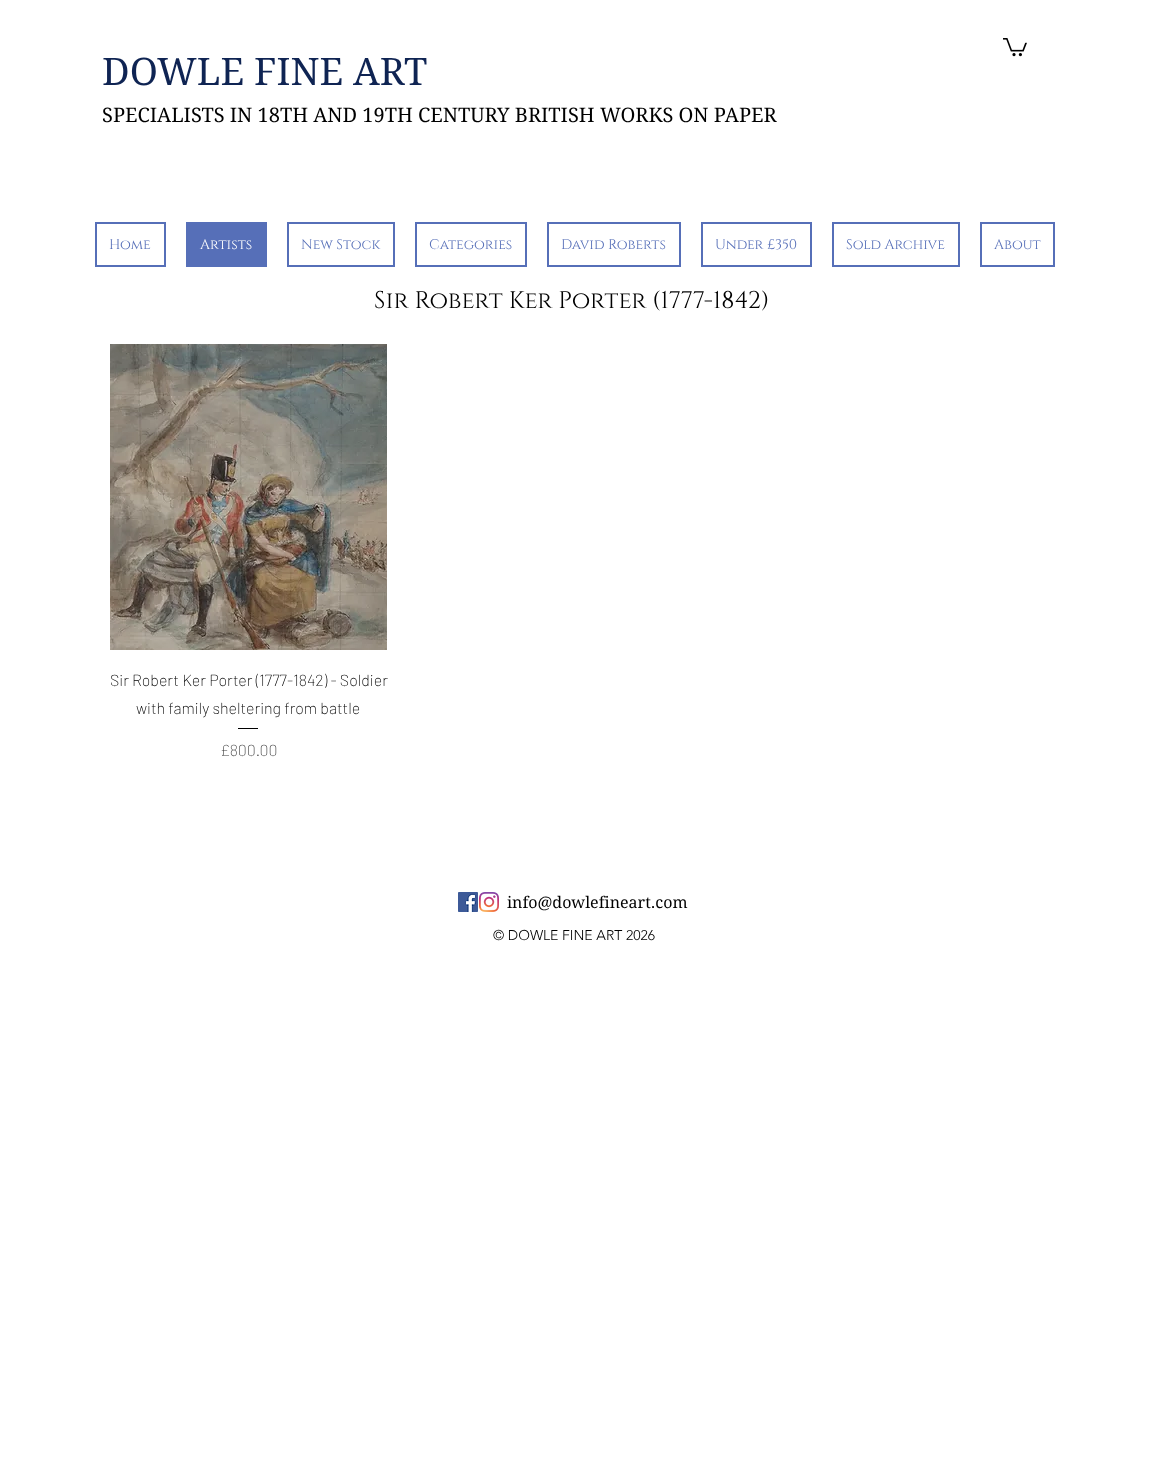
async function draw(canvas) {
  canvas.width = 1149
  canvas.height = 1468
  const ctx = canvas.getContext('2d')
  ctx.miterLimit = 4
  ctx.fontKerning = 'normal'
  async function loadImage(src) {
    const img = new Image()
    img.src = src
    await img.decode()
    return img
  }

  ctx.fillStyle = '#fff'
  ctx.fillRect(0, 0, 1149, 1468)
  ctx.drawImage(await loadImage('image0.png'), 1003, 38, 24, 19)
  ctx.font = '38px "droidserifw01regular"'
  ctx.fillStyle = '#0f2453'
  ctx.fillText('DOWLE FINE ART', 102, 85)
  ctx.font = '20px "droidserifw01regular"'
  ctx.fillStyle = '#000'
  ctx.fillText('SPECIALISTS IN 18TH AND 19TH CENTURY BRITISH WORKS ON PAPER', 102, 122)
  ctx.strokeStyle = '#566fb8'
  ctx.lineWidth = 2
  ctx.strokeRect(96, 223, 69, 43)
  ctx.font = '14px Cinzel'
  ctx.fillStyle = '#566fb8'
  ctx.fillText('Home', 109, 249)
  ctx.fillRect(186, 222, 81, 45)
  ctx.fillStyle = '#fff'
  ctx.fillText('Artists', 200, 249)
  ctx.strokeRect(288, 223, 106, 43)
  ctx.fillStyle = '#566fb8'
  ctx.fillText('New Stock', 301, 249)
  ctx.strokeRect(416, 223, 110, 43)
  ctx.fillText('Categories', 429, 249)
  ctx.strokeRect(548, 223, 132, 43)
  ctx.fillText('David Roberts', 561, 249)
  ctx.strokeRect(702, 223, 109, 43)
  ctx.fillText('Under £350', 715, 249)
  ctx.strokeRect(833, 223, 126, 43)
  ctx.fillText('Sold Archive', 846, 249)
  ctx.strokeRect(981, 223, 73, 43)
  ctx.fillText('About', 994, 249)
  ctx.font = '24px Cinzel'
  ctx.fillStyle = '#000'
  ctx.fillText('Sir Robert Ker Porter (1777-1842)', 374, 308)
  ctx.drawImage(await loadImage('image1.png'), 110, 344, 277, 306)
  ctx.font = '200 16px Barlow'
  ctx.fillText('Sir Robert Ker Porter (1777-1842) - Soldier', 110, 686)
  ctx.fillText('with family sheltering from battle', 136, 714)
  ctx.fillRect(238, 728, 20, 1)
  ctx.fillStyle = '#404040'
  ctx.fillText('£800.00', 220, 756)
  ctx.drawImage(await loadImage('image2.png'), 458, 892, 20, 20)
  ctx.drawImage(await loadImage('image3.png'), 479, 892, 20, 20)
  ctx.font = '16px "droidserifw01regular"'
  ctx.fillStyle = '#000'
  ctx.fillText('info@dowlefineart.com', 507, 908)
  ctx.font = '300 14px "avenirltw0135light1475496"'
  ctx.fillText('© DOWLE FINE ART 2026', 493, 940)
}

draw(document.querySelector('canvas'))
